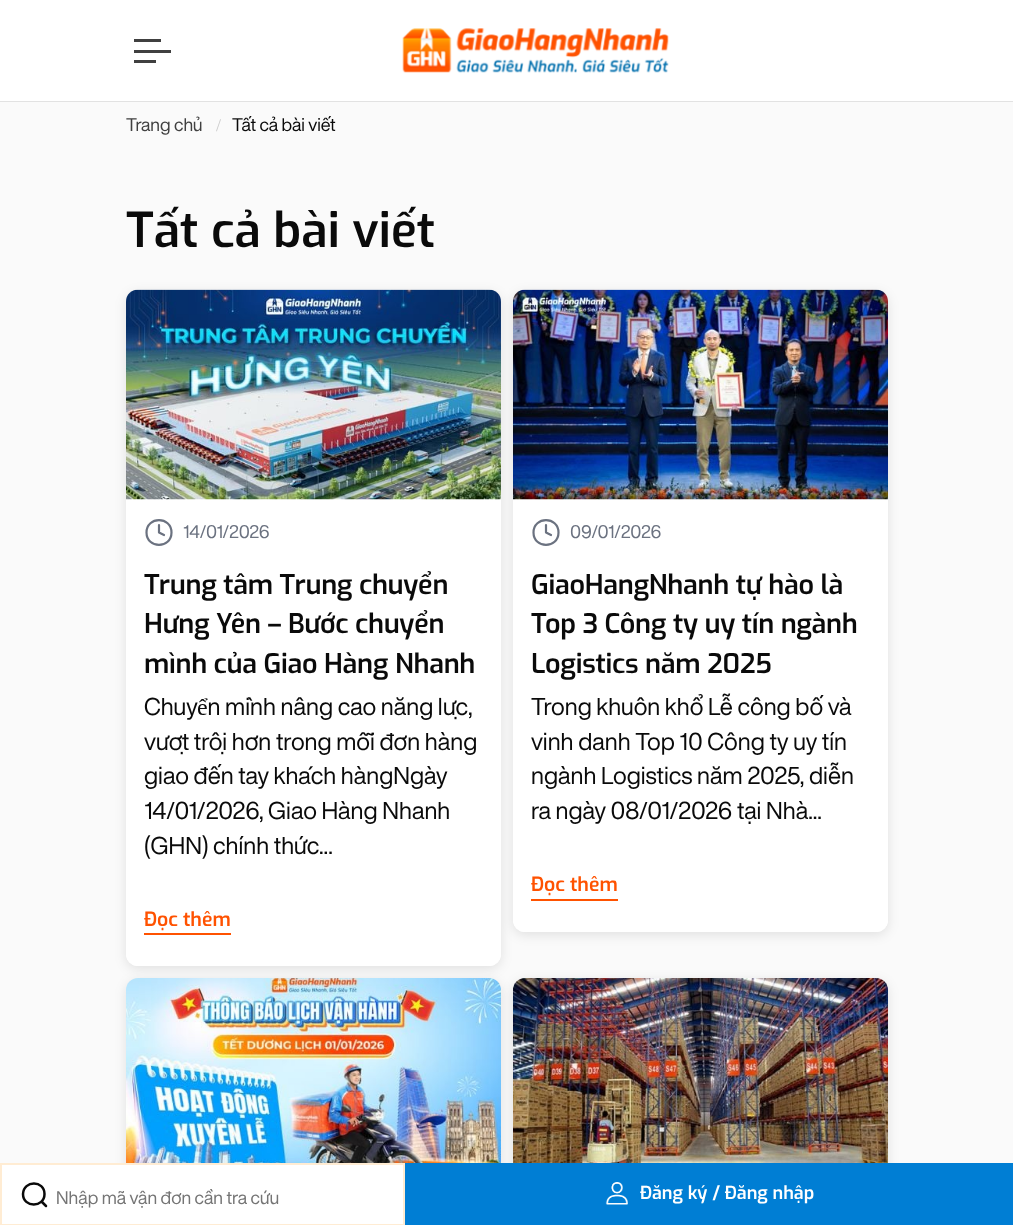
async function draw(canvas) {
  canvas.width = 1013
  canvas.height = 1225
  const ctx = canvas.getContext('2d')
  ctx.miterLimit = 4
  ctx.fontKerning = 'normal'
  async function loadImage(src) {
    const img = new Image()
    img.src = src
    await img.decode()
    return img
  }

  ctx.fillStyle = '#e2e2e2'
  ctx.fillRect(0, 0, 1013, 1225)
  ctx.fillStyle = '#fff'
  ctx.fillRect(0, 0, 1013, 101)
  ctx.fillStyle = '#404040'
  ctx.fillRect(134, 50, 37, 3)
  ctx.fillRect(134, 39, 27, 3)
  ctx.fillRect(134, 60, 22, 3)
  ctx.drawImage(await loadImage('image0.png'), 402, 28, 267, 45)
  ctx.fillStyle = '#fafafa'
  ctx.fillRect(0, 102, 1013, 1061)
  ctx.font = '18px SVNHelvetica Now'
  ctx.fillStyle = '#404040'
  ctx.fillText('Trang chủ', 126, 131)
  ctx.font = '18px Liberation Serif'
  ctx.fillStyle = '#ccc'
  ctx.fillText('/', 216, 131)
  ctx.font = '18px SVNHelvetica Now'
  ctx.fillStyle = '#0a0a0a'
  ctx.fillText('Tất cả bài viết', 232, 131)
  ctx.font = '600 48px Exo'
  ctx.fillText('Tất cả bài viết', 126, 247)
  ctx.fillStyle = '#0000001a'
  ctx.filter = 'blur(6px)'
  ctx.beginPath()
  ctx.roundRect(126, 293, 375, 676, 12)
  ctx.fill()
  ctx.filter = 'none'
  ctx.fillStyle = '#fff'
  ctx.beginPath()
  ctx.roundRect(126, 290, 375, 676, 12)
  ctx.fill()
  ctx.beginPath()
  ctx.roundRect(126, 500, 375, 466, [0, 0, 12, 12])
  ctx.fill()
  ctx.fillStyle = '#0000001a'
  ctx.filter = 'blur(6px)'
  ctx.beginPath()
  ctx.roundRect(513, 293, 375, 642, 12)
  ctx.fill()
  ctx.filter = 'none'
  ctx.drawImage(await loadImage('image1.png'), 126, 289, 375, 211)
  ctx.beginPath()
  ctx.moveTo(159, 525)
  ctx.lineTo(159, 532.5)
  ctx.lineTo(164, 535)
  ctx.moveTo(171.5, 532.5)
  ctx.bezierCurveTo(171.5, 549, 146.5, 549, 146.5, 532.5)
  ctx.bezierCurveTo(146.5, 516, 171.5, 516, 171.5, 532.5)
  ctx.closePath()
  ctx.strokeStyle = '#6b7280'
  ctx.lineWidth = 2.2
  ctx.lineCap = 'round'
  ctx.lineJoin = 'round'
  ctx.stroke()
  ctx.font = '18px SVNHelvetica Now'
  ctx.fillStyle = '#6b7280'
  ctx.fillText('14/01/2026', 183, 538)
  ctx.letterSpacing = '-0.3px'
  ctx.font = '600 27px Exo'
  ctx.fillStyle = '#0a0a0a'
  ctx.fillText('Trung tâm Trung chuyển', 144, 594)
  ctx.fillText('Hưng Yên – Bước chuyển', 144, 633)
  ctx.fillText('mình của Giao Hàng Nhanh', 144, 673)
  ctx.letterSpacing = '0px'
  ctx.font = '24px SVNHelvetica Now'
  ctx.fillText('Chuyển mình nâng cao năng lực,', 144, 715)
  ctx.fillText('vượt trội hơn trong mỗi đơn hàng', 144, 750)
  ctx.fillText('giao đến tay khách hàngNgày', 144, 784)
  ctx.fillText('14/01/2026, Giao Hàng Nhanh', 144, 819)
  ctx.fillText('(GHN) chính thức...', 144, 854)
  ctx.font = '600 19.5px Exo'
  ctx.fillStyle = '#ff5200'
  ctx.fillText('Đọc thêm', 144, 926)
  ctx.fillRect(144, 933, 87, 2)
  ctx.fillStyle = '#fff'
  ctx.beginPath()
  ctx.roundRect(513, 290, 375, 642, 12)
  ctx.fill()
  ctx.drawImage(await loadImage('image2.png'), 513, 289, 375, 211)
  ctx.beginPath()
  ctx.roundRect(513, 500, 375, 432, [0, 0, 12, 12])
  ctx.fill()
  ctx.beginPath()
  ctx.moveTo(546, 525)
  ctx.lineTo(546, 532.5)
  ctx.lineTo(551, 535)
  ctx.moveTo(558.5, 532.5)
  ctx.bezierCurveTo(558.5, 549, 533.5, 549, 533.5, 532.5)
  ctx.bezierCurveTo(533.5, 516, 558.5, 516, 558.5, 532.5)
  ctx.closePath()
  ctx.stroke()
  ctx.font = '18px SVNHelvetica Now'
  ctx.fillStyle = '#6b7280'
  ctx.fillText('09/01/2026', 570, 538)
  ctx.letterSpacing = '-0.3px'
  ctx.font = '600 27px Exo'
  ctx.fillStyle = '#0a0a0a'
  ctx.fillText('GiaoHangNhanh tự hào là', 531, 594)
  ctx.fillText('Top 3 Công ty uy tín ngành', 531, 633)
  ctx.fillText('Logistics năm 2025', 531, 673)
  ctx.letterSpacing = '0px'
  ctx.font = '24px SVNHelvetica Now'
  ctx.fillText('Trong khuôn khổ Lễ công bố và', 531, 715)
  ctx.fillText('vinh danh Top 10 Công ty uy tín', 531, 750)
  ctx.fillText('ngành Logistics năm 2025, diễn', 531, 784)
  ctx.fillText('ra ngày 08/01/2026 tại Nhà...', 531, 819)
  ctx.font = '600 19.5px Exo'
  ctx.fillStyle = '#ff5200'
  ctx.fillText('Đọc thêm', 531, 891)
  ctx.fillRect(531, 899, 87, 2)
  ctx.fillStyle = '#0000001a'
  ctx.filter = 'blur(6px)'
  ctx.beginPath()
  ctx.roundRect(126, 981, 375, 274, 12)
  ctx.fill()
  ctx.filter = 'none'
  ctx.filter = 'blur(6px)'
  ctx.beginPath()
  ctx.roundRect(513, 981, 375, 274, 12)
  ctx.fill()
  ctx.filter = 'none'
  ctx.drawImage(await loadImage('image3.png'), 126, 978, 375, 185)
  ctx.drawImage(await loadImage('image4.png'), 513, 978, 375, 185)
  ctx.fillStyle = '#fff'
  ctx.beginPath()
  ctx.rect(1, 1164, 403, 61)
  ctx.fill()
  ctx.strokeStyle = '#ffecd3'
  ctx.lineWidth = 2
  ctx.lineJoin = 'miter'
  ctx.stroke()
  ctx.beginPath()
  ctx.moveTo(46, 1206)
  ctx.lineTo(41.5, 1201.5)
  ctx.moveTo(44.5, 1194)
  ctx.bezierCurveTo(44.5, 1208, 23, 1208, 23, 1194)
  ctx.bezierCurveTo(23.5, 1180, 44.5, 1180, 44.5, 1194)
  ctx.closePath()
  ctx.strokeStyle = '#0a0a0a'
  ctx.lineWidth = 2.5
  ctx.lineJoin = 'round'
  ctx.stroke()
  ctx.font = '18px SVNHelvetica Now'
  ctx.fillStyle = '#757575'
  ctx.fillText('Nhập mã vận đơn cần tra cứu', 56, 1204)
  ctx.fillStyle = '#007ed4'
  ctx.fillRect(405, 1163, 608, 62)
  ctx.drawImage(await loadImage('image5.png'), 605, 1182, 23, 23)
  ctx.font = '600 18px Exo'
  ctx.fillStyle = '#fff'
  ctx.fillText('Đăng ký / Đăng nhập', 640, 1199)
}

draw(document.querySelector('canvas'))
